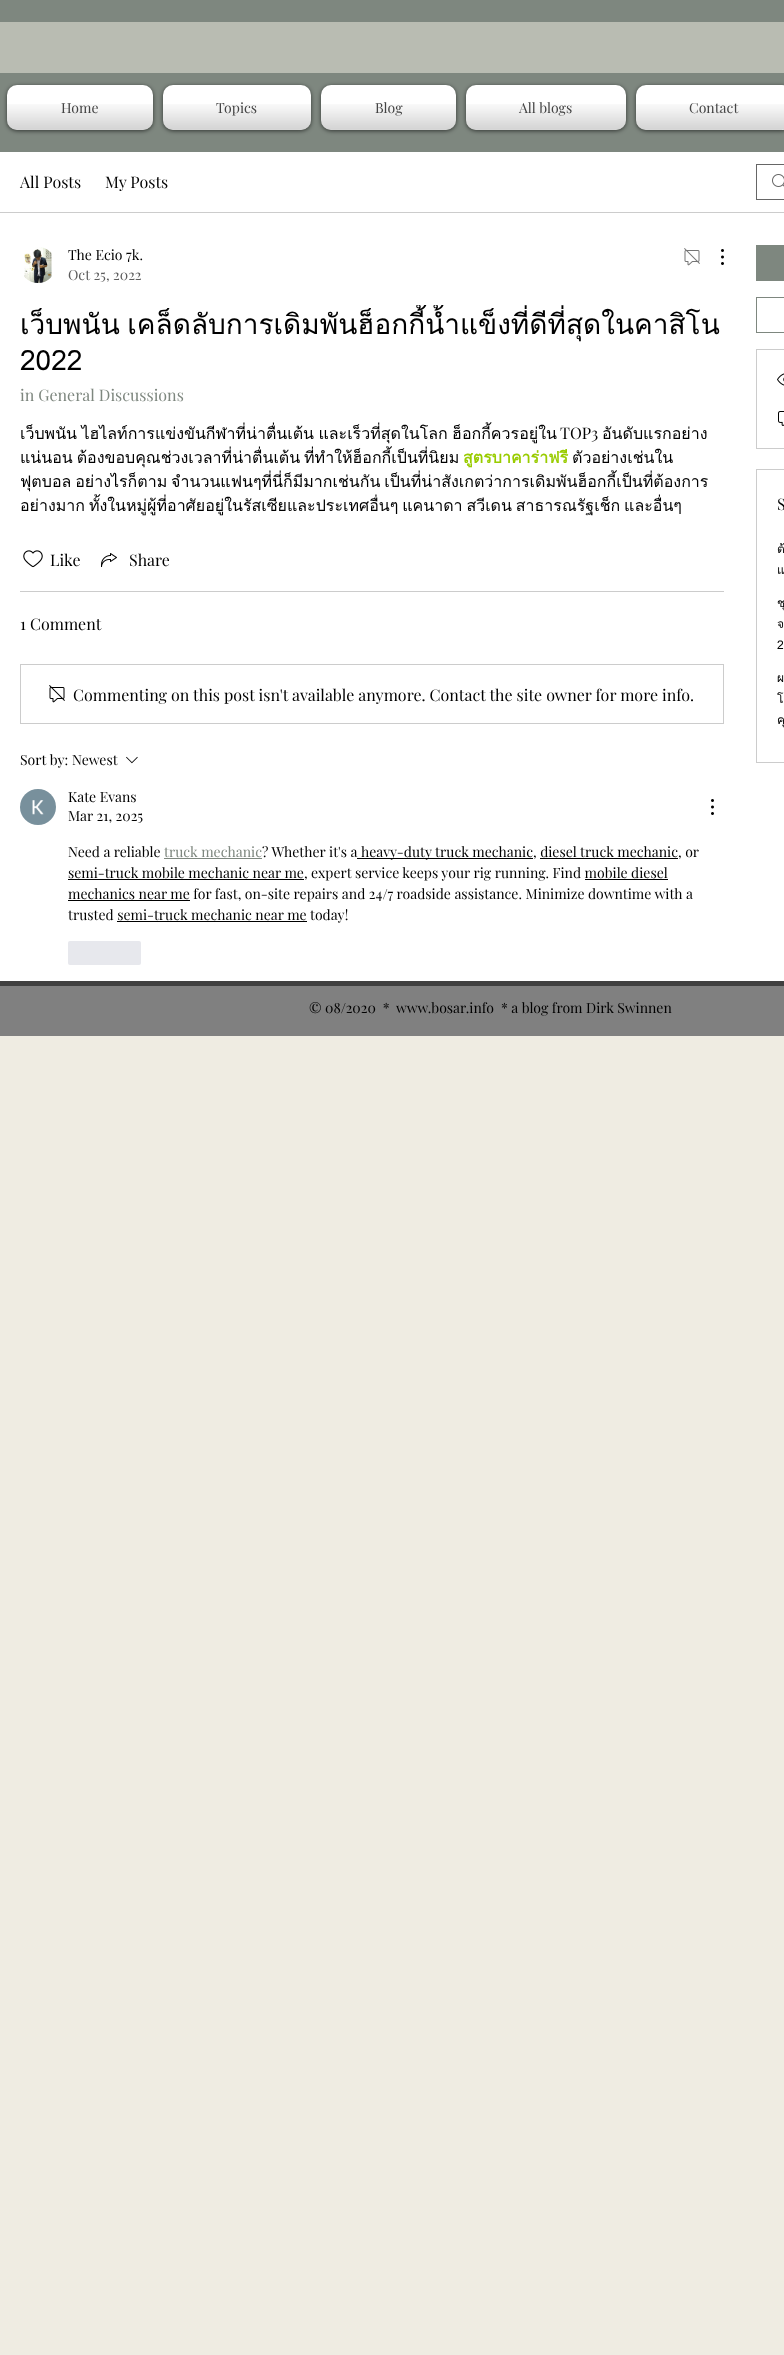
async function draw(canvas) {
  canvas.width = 784
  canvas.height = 2355
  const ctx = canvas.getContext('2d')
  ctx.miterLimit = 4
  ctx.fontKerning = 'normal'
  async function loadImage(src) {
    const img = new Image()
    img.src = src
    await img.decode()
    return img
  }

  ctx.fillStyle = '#efece2'
  ctx.fillRect(0, 0, 784, 2355)
  ctx.fillStyle = '#7e877f'
  ctx.fillRect(0, 0, 784, 152)
  ctx.fillStyle = '#b9bcb2'
  ctx.fillRect(0, 22, 784, 51)
  ctx.fillStyle = '#00000099'
  ctx.filter = 'blur(2px)'
  ctx.beginPath()
  ctx.roundRect(7, 86, 146, 45, 10)
  ctx.fill()
  ctx.filter = 'none'
  ctx.fillStyle = '#fff'
  ctx.beginPath()
  ctx.roundRect(7, 85, 146, 45, 10)
  ctx.fill()
  ctx.drawImage(await loadImage('image0.png'), 7, 104, 146, 26)
  ctx.font = '14px Playfair Display'
  ctx.fillStyle = '#444'
  ctx.fillText('Home', 61, 113)
  ctx.fillStyle = '#00000099'
  ctx.filter = 'blur(2px)'
  ctx.beginPath()
  ctx.roundRect(163, 86, 148, 45, 10)
  ctx.fill()
  ctx.filter = 'none'
  ctx.fillStyle = '#fff'
  ctx.beginPath()
  ctx.roundRect(163, 85, 148, 45, 10)
  ctx.fill()
  ctx.drawImage(await loadImage('image1.png'), 163, 104, 148, 26)
  ctx.fillStyle = '#444'
  ctx.fillText('Topics', 216, 113)
  ctx.fillStyle = '#00000099'
  ctx.filter = 'blur(2px)'
  ctx.beginPath()
  ctx.roundRect(321, 86, 135, 45, 10)
  ctx.fill()
  ctx.filter = 'none'
  ctx.fillStyle = '#fff'
  ctx.beginPath()
  ctx.roundRect(321, 85, 135, 45, 10)
  ctx.fill()
  ctx.drawImage(await loadImage('image2.png'), 321, 104, 135, 26)
  ctx.fillStyle = '#444'
  ctx.fillText('Blog', 375, 113)
  ctx.fillStyle = '#00000099'
  ctx.filter = 'blur(2px)'
  ctx.beginPath()
  ctx.roundRect(466, 86, 160, 45, 10)
  ctx.fill()
  ctx.filter = 'none'
  ctx.fillStyle = '#fff'
  ctx.beginPath()
  ctx.roundRect(466, 85, 160, 45, 10)
  ctx.fill()
  ctx.drawImage(await loadImage('image3.png'), 466, 104, 160, 26)
  ctx.fillStyle = '#444'
  ctx.fillText('All blogs', 519, 113)
  ctx.fillStyle = '#00000099'
  ctx.filter = 'blur(2px)'
  ctx.beginPath()
  ctx.roundRect(636, 86, 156, 45, 10)
  ctx.fill()
  ctx.filter = 'none'
  ctx.fillStyle = '#fff'
  ctx.beginPath()
  ctx.roundRect(636, 85, 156, 45, 10)
  ctx.fill()
  ctx.drawImage(await loadImage('image4.png'), 636, 104, 148, 26)
  ctx.fillStyle = '#444'
  ctx.fillText('Contact', 689, 113)
  ctx.fillStyle = '#fff'
  ctx.fillRect(0, 152, 784, 829)
  ctx.fillStyle = '#ccc'
  ctx.fillRect(0, 212, 784, 1)
  ctx.font = '16px Playfair Display'
  ctx.fillStyle = '#000'
  ctx.fillText('All Posts', 20, 188)
  ctx.fillText('My Posts', 105, 188)
  ctx.drawImage(await loadImage('image5.png'), 772, 174, 12, 13)
  ctx.strokeStyle = '#666'
  ctx.strokeRect(756.5, 164.5, 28, 35)
  ctx.drawImage(await loadImage('image6.png'), 24, 247, 28, 36)
  ctx.font = '14px Playfair Display'
  ctx.fillText('The Ecio 7k.', 68, 260)
  ctx.fillStyle = '#5c5c5c'
  ctx.fillText('Oct 25, 2022', 68, 280)
  ctx.drawImage(await loadImage('image7.png'), 684, 248, 16, 18)
  ctx.drawImage(await loadImage('image8.png'), 721, 249, 3, 16)
  ctx.save()
  ctx.beginPath()
  ctx.rect(20, 305, 704, 72)
  ctx.clip()
  ctx.wordSpacing = '-2px'
  ctx.font = '28px Loma'
  ctx.fillStyle = '#000'
  ctx.fillText('เว็บพนัน เคล็ดลับการเดิมพันฮ็อกกี้น้ำแข็งที่ดีที่สุดในคาสิโน', 20, 334)
  ctx.restore()
  ctx.font = '28px Loma'
  ctx.fillStyle = '#000'
  ctx.fillText('2022', 20, 370)
  ctx.font = '16px Playfair Display'
  ctx.fillStyle = '#7e877f'
  ctx.fillText('in General Discussions', 20, 401)
  ctx.save()
  ctx.beginPath()
  ctx.rect(20, 421, 704, 96)
  ctx.clip()
  ctx.wordSpacing = '-1px'
  ctx.font = '16px Loma'
  ctx.fillStyle = '#000'
  ctx.fillText('เว็บพนัน ไฮไลท์การแข่งขันกีฬาที่น่าตื่นเต้น และเร็วที่สุดในโลก ฮ็อกกี้ควรอยู่ใน', 20, 439)
  ctx.restore()
  ctx.fillStyle = '#000'
  ctx.fillText('TOP3', 560, 439)
  ctx.font = '16px Loma'
  ctx.fillText('อันดับแรกอย่าง', 602, 439)
  ctx.wordSpacing = '-1.5px'
  ctx.fillText('แน่นอน ต้องขอบคุณช่วงเวลาที่น่าตื่นเต้น ที่ทำให้ฮ็อกกี้เป็นที่นิยม', 20, 463)
  ctx.wordSpacing = '0px'
  ctx.font = 'bold 16px Loma'
  ctx.fillStyle = '#9c0'
  ctx.fillText('สูตรบาคาร่าฟรี', 463, 463)
  ctx.font = '16px Loma'
  ctx.fillStyle = '#000'
  ctx.fillText('ตัวอย่างเช่นใน', 572, 463)
  ctx.save()
  ctx.beginPath()
  ctx.rect(20, 421, 704, 96)
  ctx.clip()
  ctx.wordSpacing = '-1.5px'
  ctx.fillText('ฟุตบอล อย่างไรก็ตาม จำนวนแฟนๆที่นี่ก็มีมากเช่นกัน เป็นที่น่าสังเกตว่าการเดิมพันฮ็อกกี้เป็นที่ต้องการ', 20, 487)
  ctx.restore()
  ctx.wordSpacing = '-1.5px'
  ctx.fillText('อย่างมาก ทั้งในหมู่ผู้ที่อาศัยอยู่ในรัสเซียและประเทศอื่นๆ แคนาดา สวีเดน สาธารณรัฐเช็ก และอื่นๆ', 20, 511)
  ctx.drawImage(await loadImage('image9.png'), 23, 550, 20, 18)
  ctx.wordSpacing = '0px'
  ctx.font = '16px Playfair Display'
  ctx.fillText('Like', 50, 566)
  ctx.drawImage(await loadImage('image10.png'), 101, 553, 16, 14)
  ctx.fillText('Share', 129, 566)
  ctx.fillStyle = '#ccc'
  ctx.fillRect(20, 591, 704, 1)
  ctx.fillStyle = '#000'
  ctx.fillText('1 Comment', 20, 630)
  ctx.strokeStyle = '#ccc'
  ctx.strokeRect(20.5, 664.5, 703, 59)
  ctx.drawImage(await loadImage('image11.png'), 49, 685, 16, 18)
  ctx.fillText('Commenting on this post isn\'t available anymore. Contact the site owner for more info.', 73, 701)
  ctx.font = '14px Playfair Display'
  ctx.fillText('Sort by:', 20, 765)
  ctx.fillText('Newest', 72, 765)
  ctx.drawImage(await loadImage('image12.png'), 126, 756, 12, 8)
  ctx.drawImage(await loadImage('image13.png'), 20, 789, 36, 36)
  ctx.fillText('Kate Evans', 68, 802)
  ctx.fillText('Mar 21, 2025', 68, 821)
  ctx.drawImage(await loadImage('image14.png'), 711, 799, 3, 16)
  ctx.fillText('Need a reliable', 68, 857)
  ctx.fillStyle = '#7e877f'
  ctx.fillText('truck mechanic', 164, 857)
  ctx.fillRect(164, 858, 98, 1)
  ctx.fillStyle = '#000'
  ctx.fillText('? Whether it\'s a', 262, 857)
  ctx.fillRect(357, 858, 176, 1)
  ctx.fillText('heavy-duty truck mechanic, diesel truck mechanic, or', 361, 857)
  ctx.fillRect(540, 858, 138, 1)
  ctx.fillRect(68, 879, 236, 1)
  ctx.fillText('semi-truck mobile mechanic near me, expert service keeps your rig running. Find mobile diesel', 68, 878)
  ctx.fillRect(68, 900, 122, 1)
  ctx.fillText('mechanics near me for fast, on-site repairs and 24/7 roadside assistance. Minimize downtime with a', 68, 899)
  ctx.fillRect(585, 879, 83, 1)
  ctx.fillText('trusted semi-truck mechanic near me today!', 68, 920)
  ctx.fillRect(117, 921, 190, 1)
  ctx.fillStyle = '#e7e8ed'
  ctx.beginPath()
  ctx.roundRect(68, 941, 73, 24, 2)
  ctx.fill()
  ctx.fillStyle = '#7e877f'
  ctx.fillRect(756, 245, 28, 36)
  ctx.strokeStyle = '#7e877f'
  ctx.strokeRect(756.5, 297.5, 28, 35)
  ctx.strokeStyle = '#ccc'
  ctx.strokeRect(756.5, 349.5, 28, 99)
  ctx.drawImage(await loadImage('image15.png'), 777, 373, 7, 13)
  ctx.drawImage(await loadImage('image16.png'), 778, 411, 6, 15)
  ctx.strokeRect(756.5, 469.5, 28, 293)
  ctx.font = '16px Playfair Display'
  ctx.fillStyle = '#000'
  ctx.fillText('S', 777, 510)
  ctx.save()
  ctx.beginPath()
  ctx.rect(777, 538, 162, 42)
  ctx.clip()
  ctx.font = '12px Loma'
  ctx.fillText('ต้', 777, 553)
  ctx.restore()
  ctx.wordSpacing = '-1px'
  ctx.font = '12px Loma'
  ctx.fillText('แ', 777, 574)
  ctx.save()
  ctx.beginPath()
  ctx.rect(777, 592, 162, 63)
  ctx.clip()
  ctx.fillText('ชุ', 777, 607)
  ctx.restore()
  ctx.wordSpacing = '0px'
  ctx.fillText('จ', 777, 628)
  ctx.fillText('2', 777, 649)
  ctx.fillText('ผ', 777, 682)
  ctx.fillText('โ', 777, 703)
  ctx.save()
  ctx.beginPath()
  ctx.rect(777, 667, 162, 63)
  ctx.clip()
  ctx.wordSpacing = '-1px'
  ctx.fillText('คุ', 777, 724)
  ctx.restore()
  ctx.fillStyle = '#808080'
  ctx.fillRect(0, 986, 784, 50)
  ctx.fillStyle = '#404040'
  ctx.fillRect(0, 981, 784, 5)
  ctx.font = '14px Playfair Display'
  ctx.fillStyle = '#000'
  ctx.fillText('© 08/2020  *', 309, 1013)
  ctx.fillText('www.bosar.info', 396, 1013)
  ctx.fillText('* a blog from Dirk Swinnen', 501, 1013)
}

draw(document.querySelector('canvas'))
